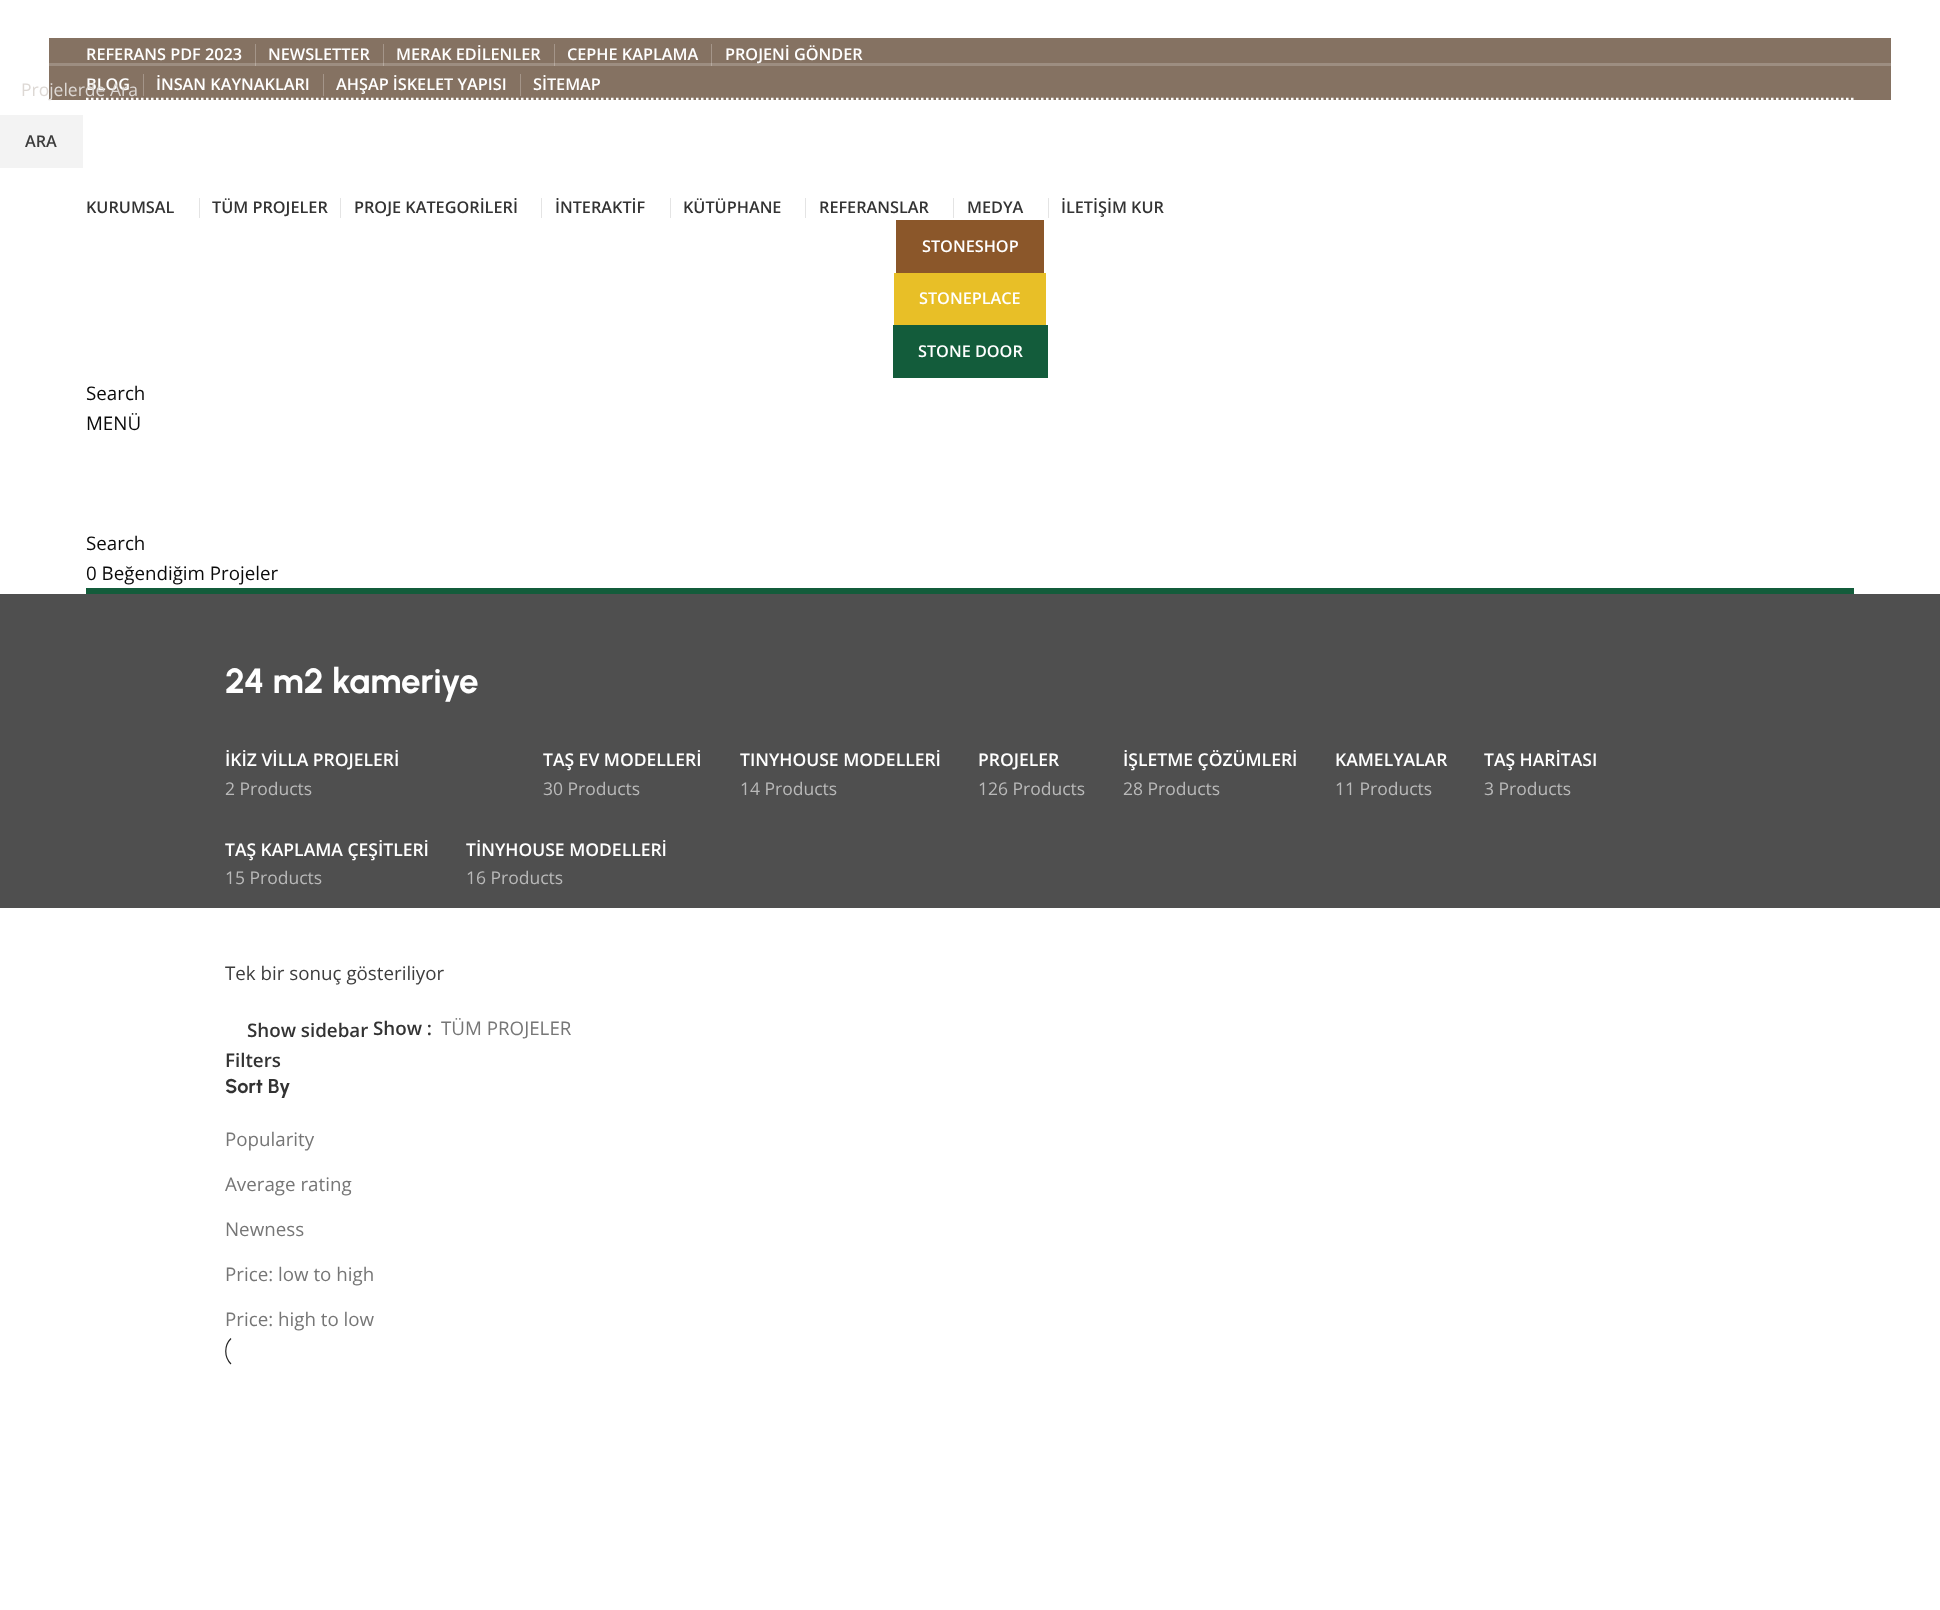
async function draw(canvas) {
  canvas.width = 1940
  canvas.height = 1610
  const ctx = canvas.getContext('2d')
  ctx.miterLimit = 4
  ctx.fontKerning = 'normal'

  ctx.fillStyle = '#fff'
  ctx.fillRect(0, 0, 1940, 1610)
  ctx.fillStyle = '#857262'
  ctx.fillRect(49, 38, 1842, 62)
  ctx.beginPath()
  ctx.moveTo(86, 99)
  ctx.lineTo(1854, 99)
  ctx.strokeStyle = '#fff'
  ctx.lineWidth = 2.5
  ctx.setLineDash([2.5, 2.5])
  ctx.stroke()
  ctx.fillStyle = '#a49589'
  ctx.fillRect(255, 44, 1, 22)
  ctx.fillRect(383, 44, 1, 22)
  ctx.fillRect(554, 44, 1, 22)
  ctx.fillRect(711, 44, 1, 22)
  ctx.font = '600 16.25px Open Sans'
  ctx.fillStyle = '#fff'
  ctx.fillText('PROJENİ GÖNDER', 725, 60)
  ctx.fillStyle = '#a49589'
  ctx.fillRect(143, 74, 1, 22)
  ctx.fillRect(323, 74, 1, 22)
  ctx.fillRect(520, 74, 1, 22)
  ctx.strokeStyle = '#ffffff33'
  ctx.lineWidth = 3
  ctx.setLineDash([])
  ctx.strokeRect(1.5, 64.5, 1937, 49)
  ctx.fillStyle = '#fff'
  ctx.fillText('BLOG', 86, 90)
  ctx.font = '17.5px Open Sans'
  ctx.fillStyle = '#ddd8d4'
  ctx.fillText('Projelerde Ara', 21, 96)
  ctx.fillStyle = '#f3f3f3'
  ctx.fillRect(0, 115, 83, 53)
  ctx.font = '600 16.25px Open Sans'
  ctx.fillStyle = '#3d3d3d'
  ctx.fillText('ARA', 25, 147)
  ctx.fillStyle = '#fff'
  ctx.fillText('REFERANS PDF 2023', 86, 60)
  ctx.fillText('NEWSLETTER', 268, 60)
  ctx.fillText('MERAK EDİLENLER', 396, 60)
  ctx.fillText('CEPHE KAPLAMA', 567, 60)
  ctx.fillText('İNSAN KAYNAKLARI', 156, 90)
  ctx.fillText('AHŞAP İSKELET YAPISI', 336, 90)
  ctx.fillText('SİTEMAP', 533, 90)
  ctx.fillStyle = '#135c3b'
  ctx.fillRect(86, 588, 1768, 6)
  ctx.fillStyle = '#333'
  ctx.fillText('KURUMSAL', 86, 213)
  ctx.fillStyle = '#e4e4e4'
  ctx.fillRect(199, 198, 1, 20)
  ctx.fillStyle = '#333'
  ctx.fillText('TÜM PROJELER', 212, 213)
  ctx.fillStyle = '#e4e4e4'
  ctx.fillRect(340, 198, 1, 20)
  ctx.fillStyle = '#333'
  ctx.fillText('PROJE KATEGORİLERİ', 354, 213)
  ctx.fillStyle = '#e4e4e4'
  ctx.fillRect(541, 198, 1, 20)
  ctx.fillStyle = '#333'
  ctx.fillText('İNTERAKTİF', 555, 213)
  ctx.fillStyle = '#e4e4e4'
  ctx.fillRect(670, 198, 1, 20)
  ctx.fillStyle = '#333'
  ctx.fillText('KÜTÜPHANE', 683, 213)
  ctx.fillStyle = '#e4e4e4'
  ctx.fillRect(805, 198, 1, 20)
  ctx.fillStyle = '#333'
  ctx.fillText('REFERANSLAR', 819, 213)
  ctx.fillStyle = '#e4e4e4'
  ctx.fillRect(953, 198, 1, 20)
  ctx.fillStyle = '#333'
  ctx.fillText('MEDYA', 967, 213)
  ctx.fillStyle = '#e4e4e4'
  ctx.fillRect(1048, 198, 1, 20)
  ctx.fillStyle = '#333'
  ctx.fillText('İLETİŞİM KUR', 1061, 213)
  ctx.fillStyle = '#8b572a'
  ctx.fillRect(896, 220, 148, 53)
  ctx.fillStyle = '#fff'
  ctx.fillText('STONESHOP', 922, 252)
  ctx.fillStyle = '#e8bf27'
  ctx.fillRect(894, 273, 152, 52)
  ctx.fillStyle = '#fff'
  ctx.fillText('STONEPLACE', 919, 304)
  ctx.fillStyle = '#135c3b'
  ctx.fillRect(893, 325, 155, 53)
  ctx.fillStyle = '#fff'
  ctx.fillText('STONE DOOR', 918, 357)
  ctx.font = '18.75px Open Sans'
  ctx.fillStyle = '#0a0a0a'
  ctx.fillText('Search', 86, 400)
  ctx.fillText('MENÜ', 86, 430)
  ctx.fillText('Search', 86, 550)
  ctx.fillText('0 Beğendiğim Projeler', 86, 580)
  ctx.fillStyle = '#4f4f4f'
  ctx.fillRect(0, 594, 1940, 314)
  ctx.font = 'bold 35px Urbanist'
  ctx.fillStyle = '#fff'
  ctx.fillText('24 m2 kameriye', 225, 693)
  ctx.font = '600 17.5px Open Sans'
  ctx.fillText('İKİZ VİLLA PROJELERİ', 225, 766)
  ctx.font = '17.5px Open Sans'
  ctx.fillStyle = '#b9b9b9'
  ctx.fillText('2 Products', 225, 795)
  ctx.font = '600 17.5px Open Sans'
  ctx.fillStyle = '#fff'
  ctx.fillText('TAŞ EV MODELLERİ', 543, 766)
  ctx.font = '17.5px Open Sans'
  ctx.fillStyle = '#b9b9b9'
  ctx.fillText('30 Products', 543, 795)
  ctx.font = '600 17.5px Open Sans'
  ctx.fillStyle = '#fff'
  ctx.fillText('TINYHOUSE MODELLERİ', 740, 766)
  ctx.font = '17.5px Open Sans'
  ctx.fillStyle = '#b9b9b9'
  ctx.fillText('14 Products', 740, 795)
  ctx.font = '600 17.5px Open Sans'
  ctx.fillStyle = '#fff'
  ctx.fillText('PROJELER', 978, 766)
  ctx.font = '17.5px Open Sans'
  ctx.fillStyle = '#b9b9b9'
  ctx.fillText('126 Products', 978, 795)
  ctx.font = '600 17.5px Open Sans'
  ctx.fillStyle = '#fff'
  ctx.fillText('İŞLETME ÇÖZÜMLERİ', 1123, 766)
  ctx.font = '17.5px Open Sans'
  ctx.fillStyle = '#b9b9b9'
  ctx.fillText('28 Products', 1123, 795)
  ctx.font = '600 17.5px Open Sans'
  ctx.fillStyle = '#fff'
  ctx.fillText('KAMELYALAR', 1335, 766)
  ctx.font = '17.5px Open Sans'
  ctx.fillStyle = '#b9b9b9'
  ctx.fillText('11 Products', 1335, 795)
  ctx.font = '600 17.5px Open Sans'
  ctx.fillStyle = '#fff'
  ctx.fillText('TAŞ HARİTASI', 1484, 766)
  ctx.font = '17.5px Open Sans'
  ctx.fillStyle = '#b9b9b9'
  ctx.fillText('3 Products', 1484, 795)
  ctx.font = '600 17.5px Open Sans'
  ctx.fillStyle = '#fff'
  ctx.fillText('TAŞ KAPLAMA ÇEŞİTLERİ', 225, 856)
  ctx.font = '17.5px Open Sans'
  ctx.fillStyle = '#b9b9b9'
  ctx.fillText('15 Products', 225, 884)
  ctx.font = '600 17.5px Open Sans'
  ctx.fillStyle = '#fff'
  ctx.fillText('TİNYHOUSE MODELLERİ', 466, 856)
  ctx.font = '17.5px Open Sans'
  ctx.fillStyle = '#b9b9b9'
  ctx.fillText('16 Products', 466, 884)
  ctx.font = '18.75px Open Sans'
  ctx.fillStyle = '#3d3d3d'
  ctx.fillText('Tek bir sonuç gösteriliyor', 225, 980)
  ctx.font = '600 18.75px Open Sans'
  ctx.fillStyle = '#333'
  ctx.fillText('Show sidebar', 247, 1037)
  ctx.fillText('Show :', 373, 1035)
  ctx.font = '18.75px Open Sans'
  ctx.fillStyle = '#767676'
  ctx.fillText('TÜM PROJELER', 441, 1035)
  ctx.font = '600 18.75px Open Sans'
  ctx.fillStyle = '#333'
  ctx.fillText('Filters', 225, 1067)
  ctx.font = 'bold 20px Urbanist'
  ctx.fillText('Sort By', 225, 1093)
  ctx.font = '18.75px Open Sans'
  ctx.fillStyle = '#767676'
  ctx.fillText('Popularity', 225, 1146)
  ctx.fillText('Average rating', 225, 1191)
  ctx.fillText('Newness', 225, 1236)
  ctx.fillText('Price: low to high', 225, 1281)
  ctx.fillText('Price: high to low', 225, 1326)
  ctx.beginPath()
  ctx.moveTo(231, 1364)
  ctx.bezierCurveTo(224, 1357, 224, 1345.5, 231, 1338.5)
  ctx.strokeStyle = '#242424'
  ctx.lineWidth = 1.2
  ctx.stroke()
}

draw(document.querySelector('canvas'))
